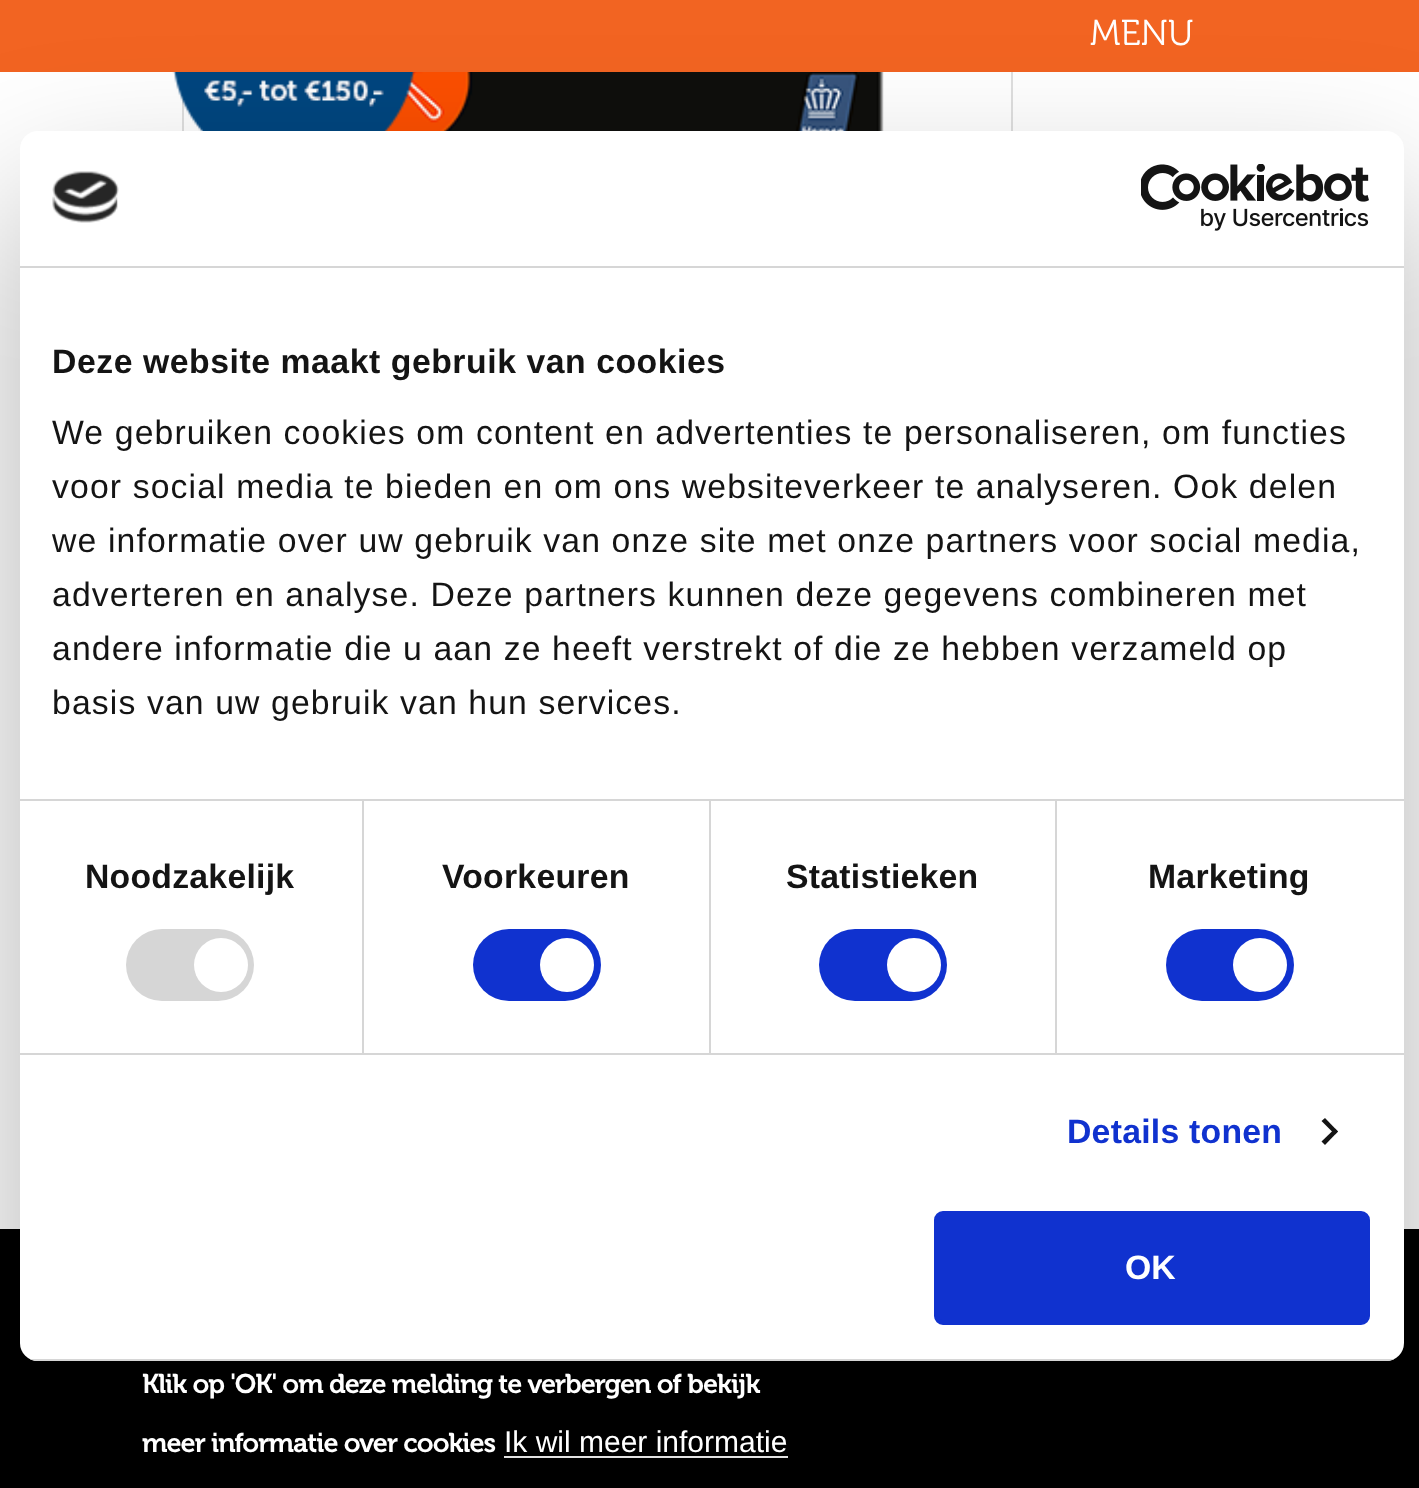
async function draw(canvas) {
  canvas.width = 1419
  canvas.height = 1488
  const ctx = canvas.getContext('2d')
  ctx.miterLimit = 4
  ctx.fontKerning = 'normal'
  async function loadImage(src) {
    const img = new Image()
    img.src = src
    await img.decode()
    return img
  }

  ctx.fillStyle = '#fff'
  ctx.fillRect(0, 0, 1419, 1488)
  ctx.strokeStyle = '#dfdfdf'
  ctx.lineWidth = 2
  ctx.strokeRect(183, -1, 829, 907)
  ctx.drawImage(await loadImage('image0.png'), 172, 72, 712, 59)
  ctx.fillStyle = '#f26422'
  ctx.fillRect(0, 0, 1419, 72)
  ctx.font = '300 36px "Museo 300"'
  ctx.fillStyle = '#fff'
  ctx.fillText('MENU', 1090, 45)
  ctx.fillStyle = '#000'
  ctx.fillRect(0, 1229, 1419, 259)
  ctx.fillStyle = '#fff'
  ctx.fillRect(504, 1456, 284, 2)
  ctx.fillStyle = '#0000004d'
  ctx.filter = 'blur(76.5px)'
  ctx.beginPath()
  ctx.roundRect(20, 203, 1384, 1230, 18)
  ctx.fill()
  ctx.filter = 'none'
  ctx.fillStyle = '#fff'
  ctx.beginPath()
  ctx.roundRect(20, 131, 1384, 1230, 18)
  ctx.fill()
  ctx.fillStyle = '#d6d6d6'
  ctx.fillRect(20, 266, 1384, 2)
  ctx.drawImage(await loadImage('image1.png'), 52, 171, 67, 52)
  ctx.drawImage(await loadImage('image2.png'), 1141, 164, 228, 67)
  ctx.fillRect(20, 799, 1384, 2)
  ctx.letterSpacing = '0.55px'
  ctx.font = 'bold 33.75px Liberation Sans'
  ctx.fillStyle = '#141414'
  ctx.fillText('Deze website maakt gebruik van cookies', 52, 373)
  ctx.letterSpacing = '1.12px'
  ctx.font = '33.75px Liberation Sans'
  ctx.fillText('We gebruiken cookies om content en advertenties te personaliseren, om functies', 52, 444)
  ctx.fillText('voor social media te bieden en om ons websiteverkeer te analyseren. Ook delen', 52, 498)
  ctx.fillText('we informatie over uw gebruik van onze site met onze partners voor social media,', 52, 552)
  ctx.fillText('adverteren en analyse. Deze partners kunnen deze gegevens combineren met', 52, 606)
  ctx.fillText('andere informatie die u aan ze heeft verstrekt of die ze hebben verzameld op', 52, 660)
  ctx.fillText('basis van uw gebruik van hun services.', 52, 714)
  ctx.fillStyle = '#d6d6d6'
  ctx.fillRect(20, 1053, 1384, 2)
  ctx.fillRect(362, 801, 2, 252)
  ctx.letterSpacing = '0.25px'
  ctx.font = 'bold 33.75px Liberation Sans'
  ctx.fillStyle = '#141414'
  ctx.fillText('Noodzakelijk', 85, 888)
  ctx.fillStyle = '#d6d6d6'
  ctx.beginPath()
  ctx.roundRect(126, 929, 128, 72, 36)
  ctx.fill()
  ctx.fillStyle = '#fff'
  ctx.beginPath()
  ctx.arc(221, 965, 27, 0, 2 * Math.PI)
  ctx.fill()
  ctx.fillStyle = '#d6d6d6'
  ctx.fillRect(709, 801, 2, 252)
  ctx.fillStyle = '#141414'
  ctx.fillText('Voorkeuren', 442, 888)
  ctx.fillStyle = '#1032cf'
  ctx.beginPath()
  ctx.roundRect(473, 929, 128, 72, 36)
  ctx.fill()
  ctx.fillStyle = '#fff'
  ctx.beginPath()
  ctx.arc(567, 965, 27, 0, 2 * Math.PI)
  ctx.fill()
  ctx.fillStyle = '#d6d6d6'
  ctx.fillRect(1055, 801, 2, 252)
  ctx.fillStyle = '#141414'
  ctx.fillText('Statistieken', 786, 888)
  ctx.fillStyle = '#1032cf'
  ctx.beginPath()
  ctx.roundRect(819, 929, 128, 72, 36)
  ctx.fill()
  ctx.fillStyle = '#fff'
  ctx.beginPath()
  ctx.arc(914, 965, 27, 0, 2 * Math.PI)
  ctx.fill()
  ctx.fillStyle = '#141414'
  ctx.fillText('Marketing', 1148, 888)
  ctx.fillStyle = '#1032cf'
  ctx.beginPath()
  ctx.roundRect(1166, 929, 128, 72, 36)
  ctx.fill()
  ctx.fillStyle = '#fff'
  ctx.beginPath()
  ctx.arc(1260, 965, 27, 0, 2 * Math.PI)
  ctx.fill()
  ctx.fillStyle = '#1032cf'
  ctx.fillText('Details tonen', 1067, 1143)
  ctx.fillStyle = '#141414'
  ctx.beginPath()
  ctx.moveTo(1325, 1118)
  ctx.lineTo(1338, 1131.5)
  ctx.lineTo(1335, 1134.5)
  ctx.lineTo(1321.5, 1121)
  ctx.closePath()
  ctx.fill()
  ctx.beginPath()
  ctx.moveTo(1335, 1128.5)
  ctx.lineTo(1338, 1131.5)
  ctx.lineTo(1325, 1145)
  ctx.lineTo(1321.5, 1141.5)
  ctx.closePath()
  ctx.fill()
  ctx.save()
  ctx.beginPath()
  ctx.roundRect(20, 131, 1384, 1230, 18)
  ctx.clip()
  ctx.fillStyle = '#d6d6d6'
  ctx.fillRect(30, 1359, 1364, 2)
  ctx.restore()
  ctx.fillStyle = '#1032cf'
  ctx.beginPath()
  ctx.roundRect(936.5, 1213.5, 431, 109, 6.5)
  ctx.fill()
  ctx.strokeStyle = '#1032cf'
  ctx.lineWidth = 5
  ctx.stroke()
  ctx.letterSpacing = '0px'
  ctx.fillStyle = '#fff'
  ctx.fillText('OK', 1125, 1279)
  ctx.letterSpacing = '-0.95px'
  ctx.font = '600 27px "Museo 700"'
  ctx.fillText('Klik op \'OK\' om deze melding te verbergen of bekijk', 142, 1393)
  ctx.fillText('meer informatie over cookies', 142, 1452)
  ctx.letterSpacing = '0px'
  ctx.font = '30px Liberation Sans'
  ctx.fillText('Ik wil meer informatie', 504, 1452)
}

draw(document.querySelector('canvas'))
